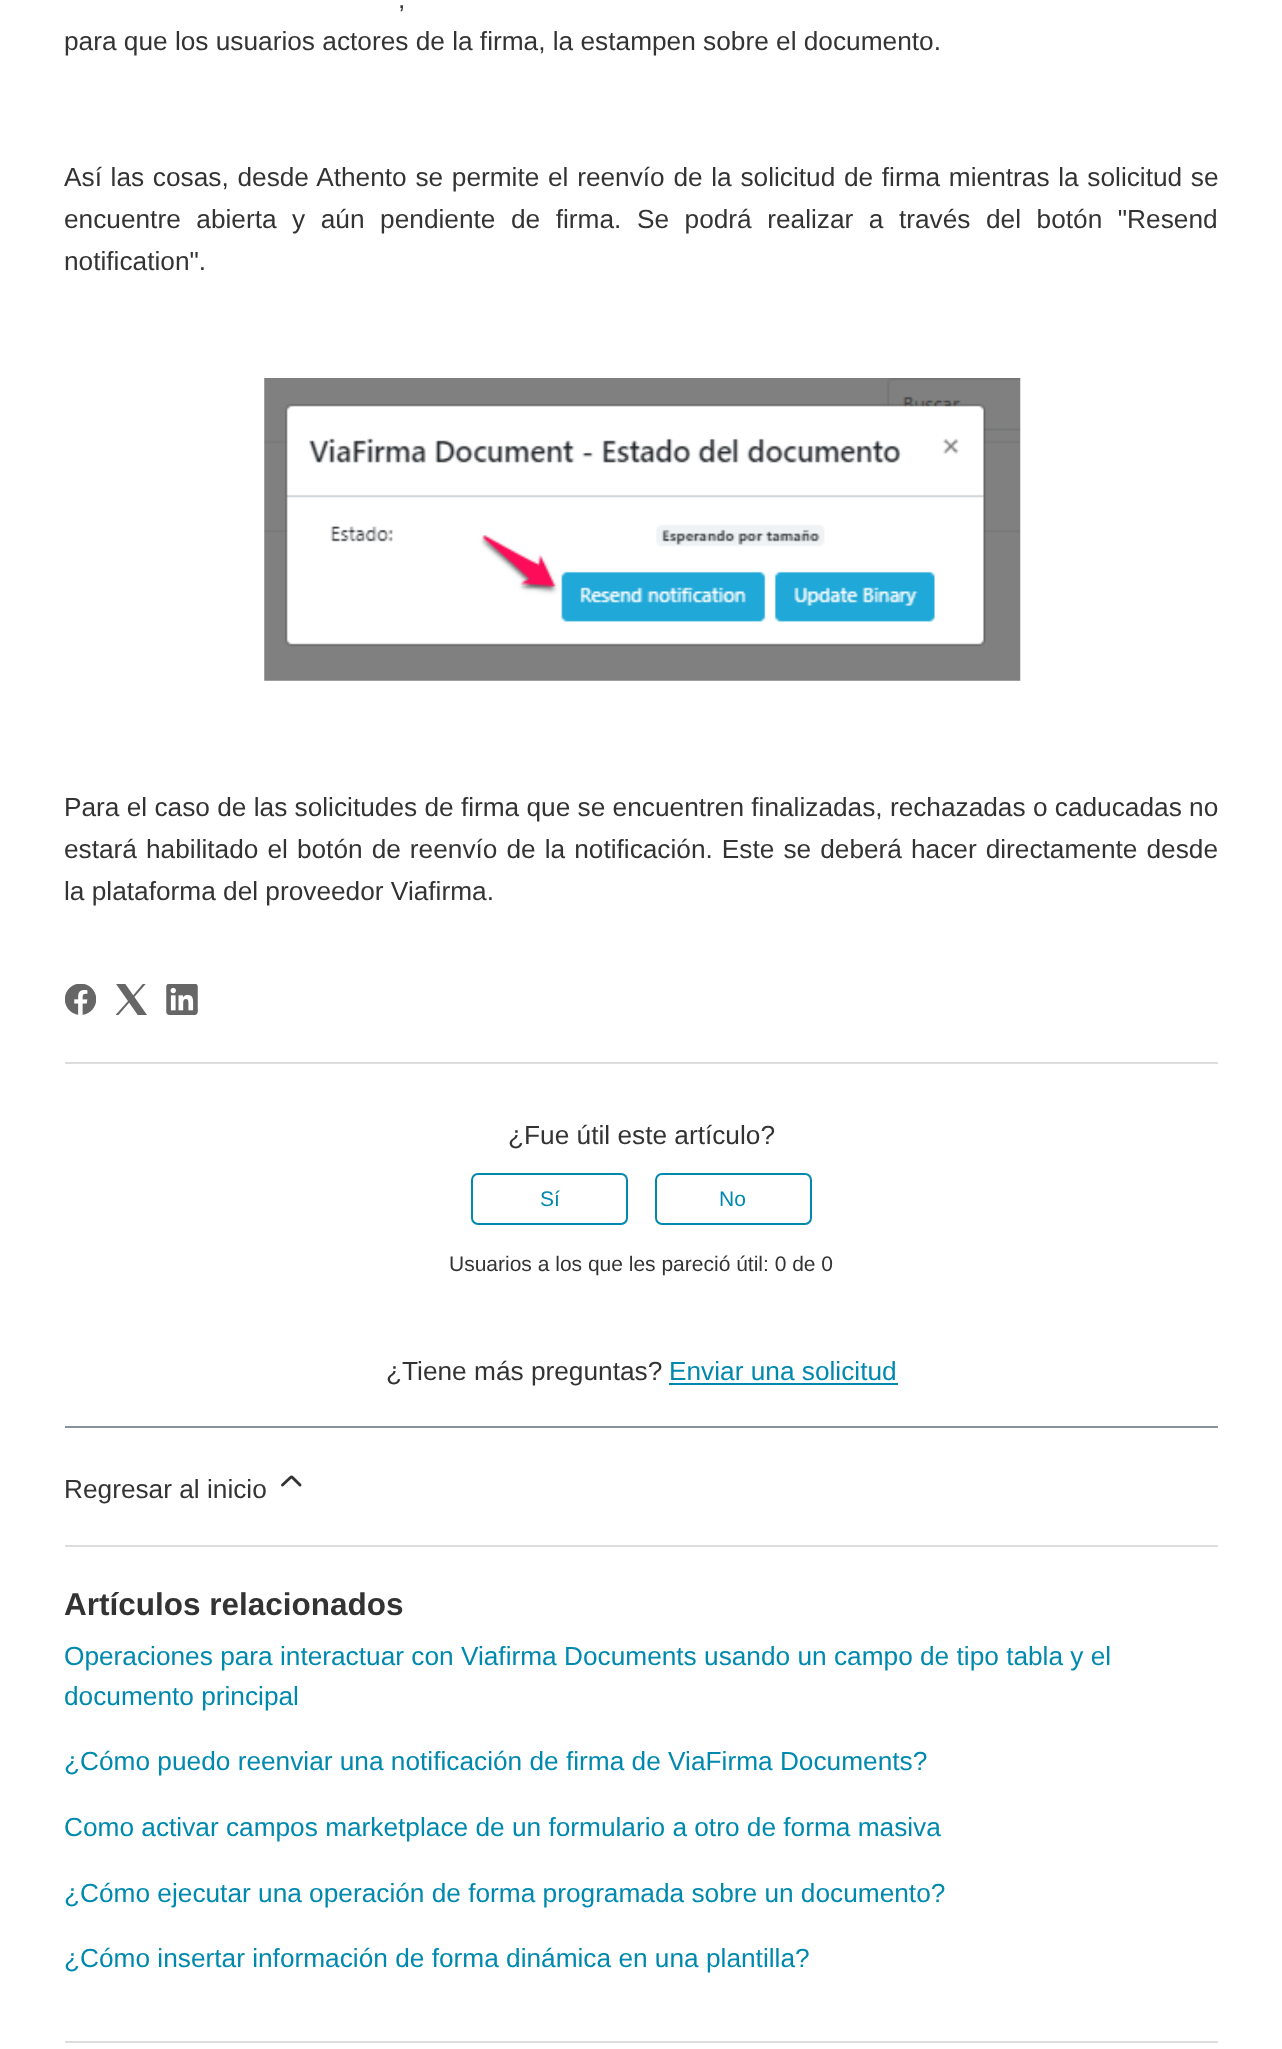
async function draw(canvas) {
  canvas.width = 1282
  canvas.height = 2049
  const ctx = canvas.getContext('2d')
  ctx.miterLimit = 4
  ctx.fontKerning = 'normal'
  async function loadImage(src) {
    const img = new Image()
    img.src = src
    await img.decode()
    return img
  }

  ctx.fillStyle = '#fff'
  ctx.fillRect(0, 0, 1282, 2049)
  ctx.wordSpacing = '4px'
  ctx.font = '26.25px Liberation Sans'
  ctx.fillStyle = '#333'
  ctx.fillText(',', 398, 8)
  ctx.wordSpacing = '0px'
  ctx.fillText('para que los usuarios actores de la firma, la estampen sobre el documento.', 64, 50)
  ctx.wordSpacing = '1.4px'
  ctx.fillText('Así las cosas, desde Athento se permite el reenvío de la solicitud de firma mientras la solicitud se', 64, 186)
  ctx.wordSpacing = '8.25px'
  ctx.fillText('encuentre abierta y aún pendiente de firma. Se podrá realizar a través del botón "Resend', 64, 228)
  ctx.wordSpacing = '0px'
  ctx.fillText('notification".', 64, 270)
  ctx.drawImage(await loadImage('image0.png'), 264, 378, 757, 303)
  ctx.fillText('Para el caso de las solicitudes de firma que se encuentren finalizadas, rechazadas o caducadas no', 64, 816)
  ctx.wordSpacing = '1.75px'
  ctx.fillText('estará habilitado el botón de reenvío de la notificación. Este se deberá hacer directamente desde', 64, 858)
  ctx.wordSpacing = '0px'
  ctx.fillText('la plataforma del proveedor Viafirma.', 64, 900)
  ctx.drawImage(await loadImage('image1.png'), 65, 984, 31, 31)
  ctx.drawImage(await loadImage('image2.png'), 116, 984, 31, 31)
  ctx.drawImage(await loadImage('image3.png'), 166, 984, 32, 31)
  ctx.fillStyle = '#ddd'
  ctx.fillRect(65, 1062, 1153, 2)
  ctx.fillStyle = '#333'
  ctx.fillText('¿Fue útil este artículo?', 508, 1144)
  ctx.beginPath()
  ctx.roundRect(472, 1174, 155, 50, 6)
  ctx.strokeStyle = '#0089af'
  ctx.lineWidth = 2
  ctx.stroke()
  ctx.font = '21px Liberation Sans'
  ctx.fillStyle = '#0089af'
  ctx.fillText('Sí', 540, 1206)
  ctx.beginPath()
  ctx.roundRect(656, 1174, 155, 50, 6)
  ctx.stroke()
  ctx.fillText('No', 719, 1206)
  ctx.fillStyle = '#333'
  ctx.fillText('Usuarios a los que les pareció útil: 0 de 0', 449, 1271)
  ctx.font = '26.25px Liberation Sans'
  ctx.fillText('¿Tiene más preguntas?', 386, 1380)
  ctx.fillStyle = '#0089af'
  ctx.fillText('Enviar una solicitud', 669, 1380)
  ctx.fillRect(669, 1383, 229, 2)
  ctx.fillStyle = '#87929d'
  ctx.fillRect(65, 1426, 1153, 2)
  ctx.fillStyle = '#333'
  ctx.fillText('Regresar al inicio', 64, 1498)
  ctx.beginPath()
  ctx.moveTo(300, 1485)
  ctx.lineTo(292.5, 1477.5)
  ctx.bezierCurveTo(292, 1477, 291, 1477, 290.5, 1477.5)
  ctx.lineTo(282.5, 1485)
  ctx.strokeStyle = '#333'
  ctx.lineWidth = 2.9
  ctx.lineCap = 'round'
  ctx.stroke()
  ctx.fillStyle = '#ddd'
  ctx.fillRect(65, 1545, 1153, 2)
  ctx.font = 'bold 31.5px Liberation Sans'
  ctx.fillStyle = '#333'
  ctx.fillText('Artículos relacionados', 64, 1615)
  ctx.font = '26.25px Liberation Sans'
  ctx.fillStyle = '#0089af'
  ctx.fillText('Operaciones para interactuar con Viafirma Documents usando un campo de tipo tabla y el', 64, 1665)
  ctx.fillText('documento principal', 64, 1705)
  ctx.fillText('¿Cómo puedo reenviar una notificación de firma de ViaFirma Documents?', 64, 1770)
  ctx.fillText('Como activar campos marketplace de un formulario a otro de forma masiva', 64, 1836)
  ctx.fillText('¿Cómo ejecutar una operación de forma programada sobre un documento?', 64, 1902)
  ctx.fillText('¿Cómo insertar información de forma dinámica en una plantilla?', 64, 1967)
  ctx.fillStyle = '#ddd'
  ctx.fillRect(65, 2041, 1153, 2)
}

draw(document.querySelector('canvas'))
